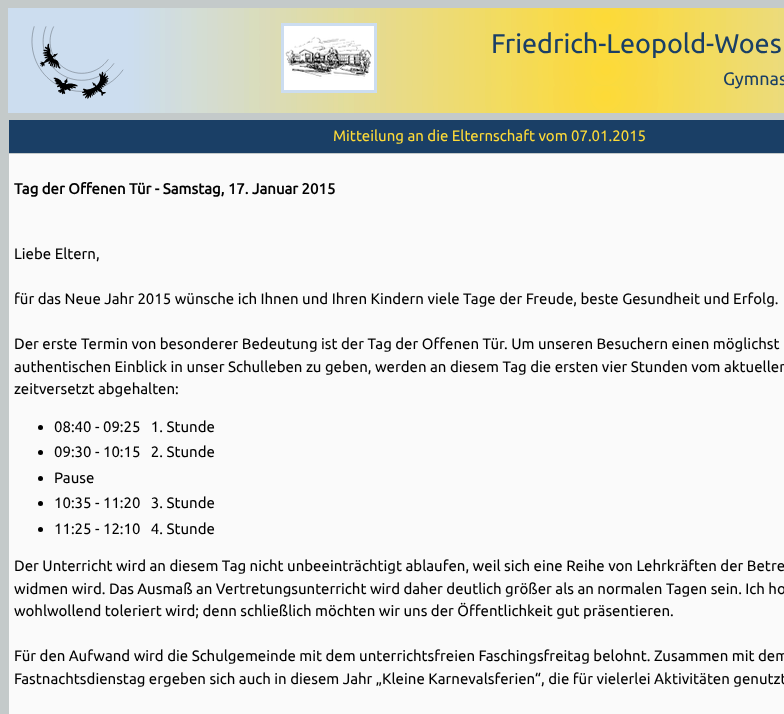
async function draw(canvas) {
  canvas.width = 784
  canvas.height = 714
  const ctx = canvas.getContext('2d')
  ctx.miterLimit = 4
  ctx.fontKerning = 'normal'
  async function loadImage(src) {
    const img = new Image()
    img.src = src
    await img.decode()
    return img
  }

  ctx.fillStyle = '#c4caca'
  ctx.fillRect(0, 0, 784, 714)
  ctx.drawImage(await loadImage('image0.png'), 8, 8, 776, 105)
  ctx.drawImage(await loadImage('image1.png'), 31, 26, 93, 73)
  ctx.strokeStyle = '#ccddf0'
  ctx.lineWidth = 3
  ctx.strokeRect(282.5, 24.5, 93, 67)
  ctx.drawImage(await loadImage('image2.png'), 284, 26, 90, 64)
  ctx.font = '27px Ubuntu'
  ctx.fillStyle = '#1a3f66'
  ctx.fillText('Friedrich-Leopold-Woes', 491, 53)
  ctx.font = '18px Ubuntu'
  ctx.fillText('Gymnas', 723, 85)
  ctx.fillRect(9, 120, 775, 33)
  ctx.font = '15px Ubuntu'
  ctx.fillStyle = '#fdda38'
  ctx.fillText('Mitteilung an die Elternschaft vom 07.01.2015', 333, 141)
  ctx.fillStyle = '#fafafa'
  ctx.fillRect(9, 154, 775, 560)
  ctx.font = 'bold 15px Ubuntu'
  ctx.fillStyle = '#000'
  ctx.fillText('Tag der Offenen Tür - Samstag, 17. Januar 2015', 14, 194)
  ctx.font = '15px Ubuntu'
  ctx.fillText('Liebe Eltern,', 14, 259)
  ctx.fillText('für das Neue Jahr 2015 wünsche ich Ihnen und Ihren Kindern viele Tage der Freude, beste Gesundheit und Erfolg.', 14, 304)
  ctx.fillText('Der erste Termin von besonderer Bedeutung ist der Tag der Offenen Tür. Um unseren Besuchern einen möglichst', 14, 349)
  ctx.fillText('authentischen Einblick in unser Schulleben zu geben, werden an diesem Tag die ersten vier Stunden vom aktuellen', 14, 372)
  ctx.fillText('zeitversetzt abgehalten:', 14, 394)
  ctx.beginPath()
  ctx.arc(40.5, 427.5, 2.5, 0, 2 * Math.PI)
  ctx.fill()
  ctx.fillText('08:40 - 09:25   1. Stunde', 54, 432)
  ctx.beginPath()
  ctx.arc(40.5, 452.5, 2.5, 0, 2 * Math.PI)
  ctx.fill()
  ctx.fillText('09:30 - 10:15   2. Stunde', 54, 457)
  ctx.beginPath()
  ctx.arc(40.5, 478.5, 2.5, 0, 2 * Math.PI)
  ctx.fill()
  ctx.fillText('Pause', 54, 483)
  ctx.beginPath()
  ctx.arc(40.5, 503.5, 2.5, 0, 2 * Math.PI)
  ctx.fill()
  ctx.fillText('10:35 - 11:20   3. Stunde', 54, 508)
  ctx.beginPath()
  ctx.arc(40.5, 529.5, 2.5, 0, 2 * Math.PI)
  ctx.fill()
  ctx.fillText('11:25 - 12:10   4. Stunde', 54, 534)
  ctx.fillText('Der Unterricht wird an diesem Tag nicht unbeeinträchtigt ablaufen, weil sich eine Reihe von Lehrkräften der Betre', 14, 571)
  ctx.fillText('widmen wird. Das Ausmaß an Vertretungsunterricht wird daher deutlich größer als an normalen Tagen sein. Ich ho', 14, 594)
  ctx.fillText('wohlwollend toleriert wird; denn schließlich möchten wir uns der Öffentlichkeit gut präsentieren.', 14, 616)
  ctx.fillText('Für den Aufwand wird die Schulgemeinde mit dem unterrichtsfreien Faschingsfreitag belohnt. Zusammen mit dem', 14, 661)
  ctx.fillText('Fastnachtsdienstag ergeben sich auch in diesem Jahr „Kleine Karnevalsferien“, die für vielerlei Aktivitäten genutzt', 14, 684)
}

draw(document.querySelector('canvas'))
